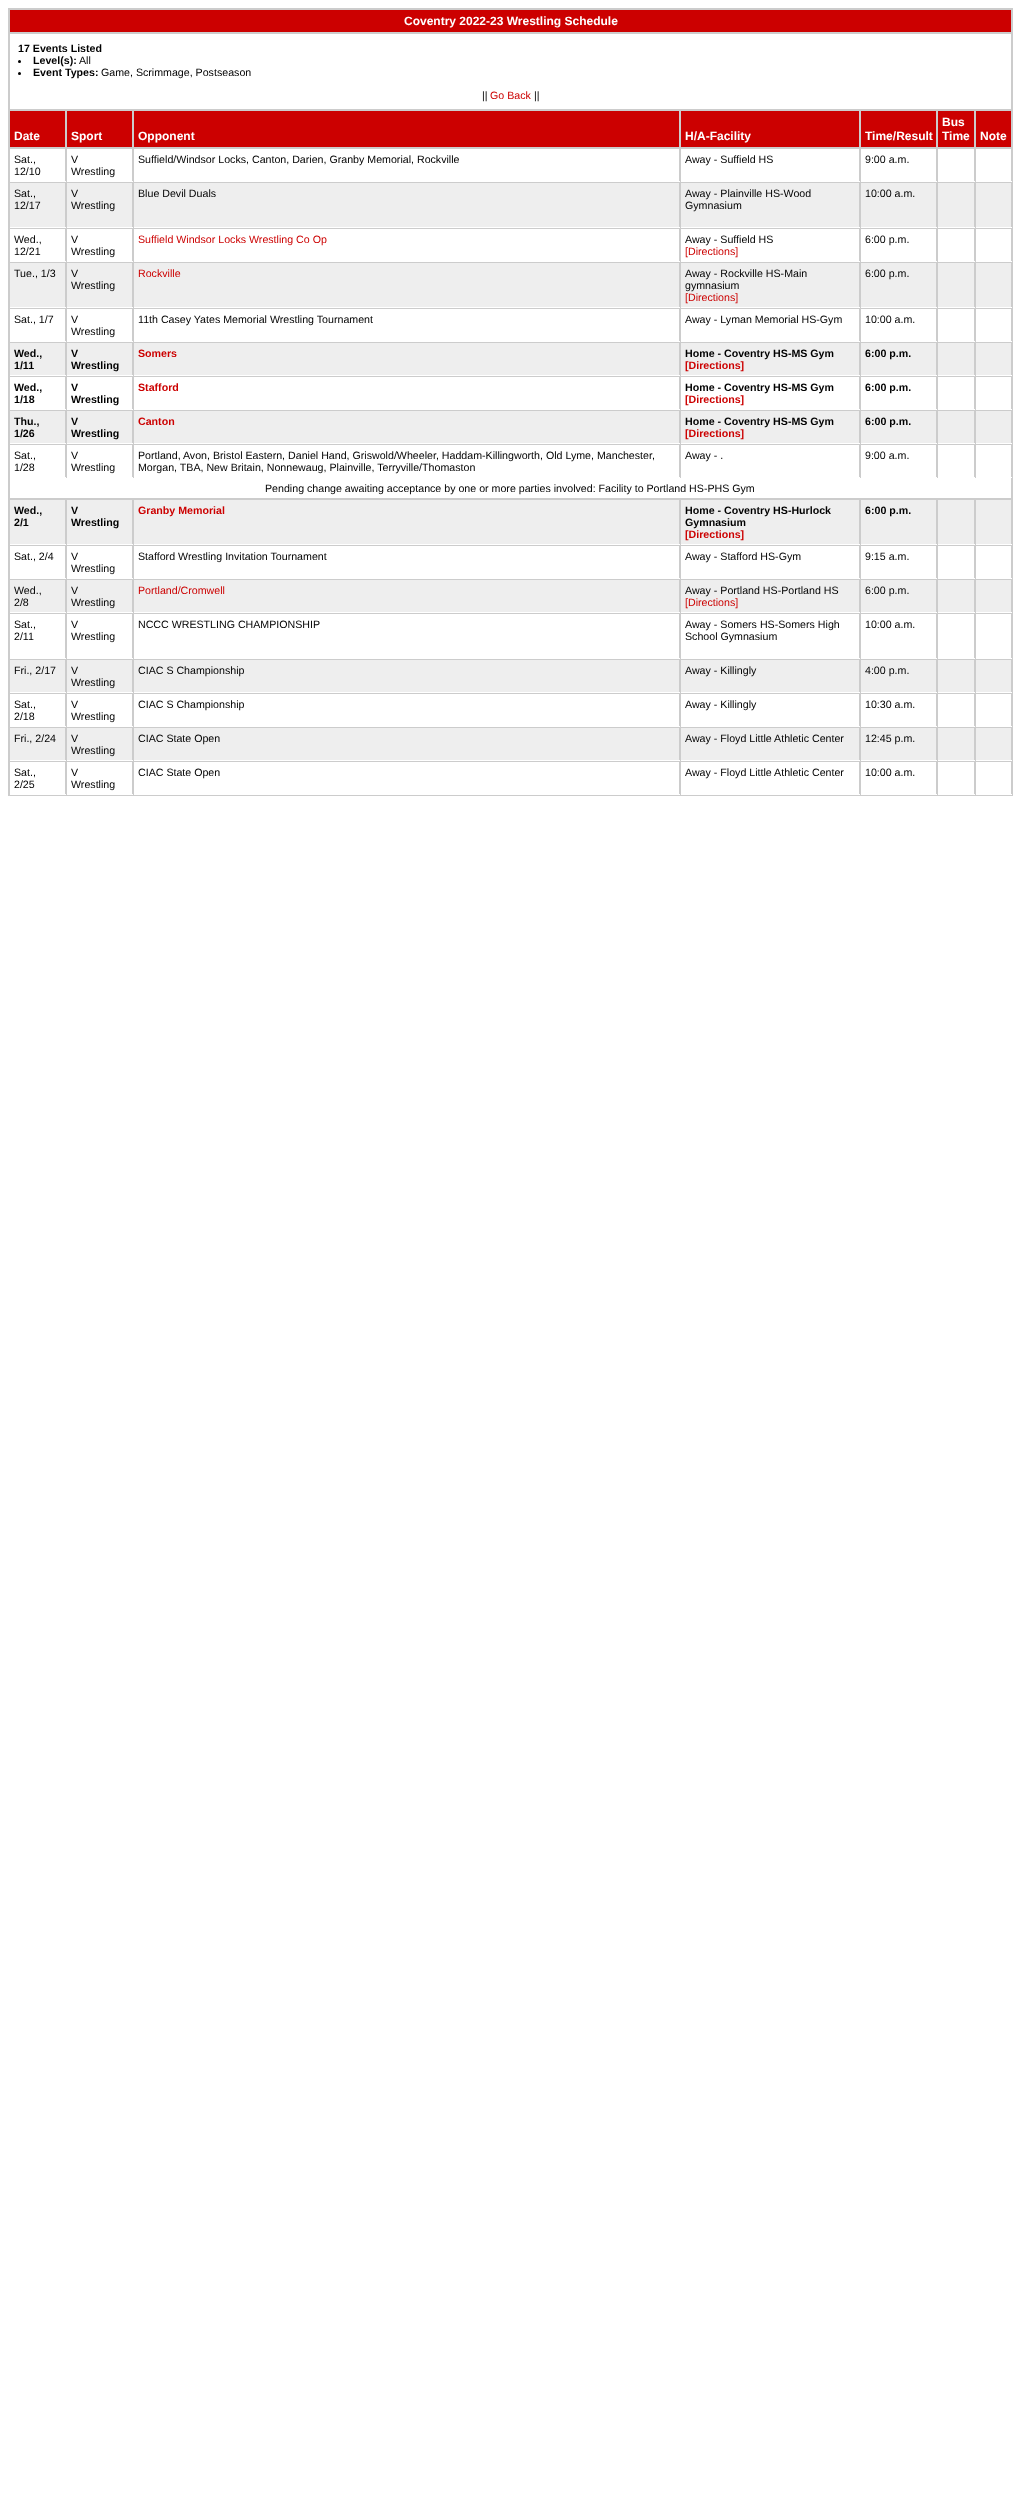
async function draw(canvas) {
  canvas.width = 1021
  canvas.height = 2504
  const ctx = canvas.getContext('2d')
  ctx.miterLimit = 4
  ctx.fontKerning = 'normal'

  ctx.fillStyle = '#fff'
  ctx.fillRect(0, 0, 1021, 2504)
  ctx.fillStyle = '#ccc'
  ctx.fillRect(8, 8, 1005, 788)
  ctx.fillStyle = '#c00'
  ctx.fillRect(10, 10, 1001, 22)
  ctx.font = 'bold 12px Liberation Sans'
  ctx.fillStyle = '#fff'
  ctx.fillText('Coventry 2022-23 Wrestling Schedule', 404, 25)
  ctx.fillRect(10, 34, 1001, 75)
  ctx.font = 'bold 10.65px Liberation Sans'
  ctx.fillStyle = '#000'
  ctx.fillText('17 Events Listed', 18, 52)
  ctx.beginPath()
  ctx.arc(19.5, 61.5, 1.5, 0, 2 * Math.PI)
  ctx.fill()
  ctx.fillText('Level(s):', 33, 64)
  ctx.font = '10.65px Liberation Sans'
  ctx.fillText('All', 79, 64)
  ctx.beginPath()
  ctx.arc(19.5, 73.5, 1.5, 0, 2 * Math.PI)
  ctx.fill()
  ctx.font = 'bold 10.65px Liberation Sans'
  ctx.fillText('Event Types:', 33, 76)
  ctx.font = '10.65px Liberation Sans'
  ctx.fillText('Game, Scrimmage, Postseason', 101, 76)
  ctx.fillText('||', 482, 99)
  ctx.fillStyle = '#c00'
  ctx.fillText('Go Back', 490, 99)
  ctx.fillStyle = '#000'
  ctx.fillText('||', 534, 99)
  ctx.fillStyle = '#c00'
  ctx.fillRect(10, 111, 55, 36)
  ctx.font = 'bold 12px Liberation Sans'
  ctx.fillStyle = '#fff'
  ctx.fillText('Date', 14, 140)
  ctx.fillStyle = '#c00'
  ctx.fillRect(67, 111, 65, 36)
  ctx.fillStyle = '#fff'
  ctx.fillText('Sport', 71, 140)
  ctx.fillStyle = '#c00'
  ctx.fillRect(134, 111, 545, 36)
  ctx.fillStyle = '#fff'
  ctx.fillText('Opponent', 138, 140)
  ctx.fillStyle = '#c00'
  ctx.fillRect(681, 111, 178, 36)
  ctx.fillStyle = '#fff'
  ctx.fillText('H/A-Facility', 685, 140)
  ctx.fillStyle = '#c00'
  ctx.fillRect(861, 111, 75, 36)
  ctx.fillStyle = '#fff'
  ctx.fillText('Time/Result', 865, 140)
  ctx.fillStyle = '#c00'
  ctx.fillRect(938, 111, 36, 36)
  ctx.fillStyle = '#fff'
  ctx.fillText('Bus', 942, 126)
  ctx.fillText('Time', 942, 140)
  ctx.fillStyle = '#c00'
  ctx.fillRect(976, 111, 35, 36)
  ctx.fillStyle = '#fff'
  ctx.fillText('Note', 980, 140)
  ctx.fillRect(10, 149, 1001, 32)
  ctx.fillStyle = '#ccc'
  ctx.fillRect(974, 148, 1, 34)
  ctx.fillStyle = '#fff'
  ctx.fillRect(937, 181, 75, 1)
  ctx.fillStyle = '#ccc'
  ctx.fillRect(937, 148, 1, 34)
  ctx.fillRect(65, 148, 1, 34)
  ctx.fillStyle = '#fff'
  ctx.fillRect(9, 181, 57, 1)
  ctx.fillStyle = '#ccc'
  ctx.fillRect(9, 181, 1, 1)
  ctx.font = '10.65px Liberation Sans'
  ctx.fillStyle = '#000'
  ctx.fillText('Sat.,', 14, 163)
  ctx.fillText('12/10', 14, 175)
  ctx.fillStyle = '#ccc'
  ctx.fillRect(132, 148, 1, 34)
  ctx.fillStyle = '#fff'
  ctx.fillRect(66, 181, 67, 1)
  ctx.fillStyle = '#ccc'
  ctx.fillRect(66, 148, 1, 34)
  ctx.fillStyle = '#000'
  ctx.fillText('V', 71, 163)
  ctx.fillText('Wrestling', 71, 175)
  ctx.fillStyle = '#ccc'
  ctx.fillRect(679, 148, 1, 34)
  ctx.fillStyle = '#fff'
  ctx.fillRect(133, 181, 547, 1)
  ctx.fillStyle = '#ccc'
  ctx.fillRect(133, 148, 1, 34)
  ctx.fillStyle = '#000'
  ctx.fillText('Suffield/Windsor Locks, Canton, Darien, Granby Memorial, Rockville', 138, 163)
  ctx.fillStyle = '#ccc'
  ctx.fillRect(859, 148, 1, 34)
  ctx.fillStyle = '#fff'
  ctx.fillRect(680, 181, 180, 1)
  ctx.fillStyle = '#ccc'
  ctx.fillRect(680, 148, 1, 34)
  ctx.fillStyle = '#000'
  ctx.fillText('Away - Suffield HS', 685, 163)
  ctx.fillStyle = '#ccc'
  ctx.fillRect(936, 148, 1, 34)
  ctx.fillStyle = '#fff'
  ctx.fillRect(860, 181, 77, 1)
  ctx.fillStyle = '#ccc'
  ctx.fillRect(860, 148, 1, 34)
  ctx.fillStyle = '#000'
  ctx.fillText('9:00 a.m.', 865, 163)
  ctx.fillStyle = '#ccc'
  ctx.fillRect(975, 148, 1, 34)
  ctx.fillStyle = '#eee'
  ctx.fillRect(10, 183, 1001, 44)
  ctx.fillStyle = '#ccc'
  ctx.fillRect(974, 182, 1, 46)
  ctx.fillStyle = '#fff'
  ctx.fillRect(937, 227, 75, 1)
  ctx.fillStyle = '#ccc'
  ctx.fillRect(937, 182, 1, 46)
  ctx.fillRect(65, 182, 1, 46)
  ctx.fillStyle = '#fff'
  ctx.fillRect(9, 227, 57, 1)
  ctx.fillStyle = '#ccc'
  ctx.fillRect(9, 227, 1, 1)
  ctx.fillStyle = '#000'
  ctx.fillText('Sat.,', 14, 197)
  ctx.fillText('12/17', 14, 209)
  ctx.fillStyle = '#ccc'
  ctx.fillRect(132, 182, 1, 46)
  ctx.fillStyle = '#fff'
  ctx.fillRect(66, 227, 67, 1)
  ctx.fillStyle = '#ccc'
  ctx.fillRect(66, 182, 1, 46)
  ctx.fillStyle = '#000'
  ctx.fillText('V', 71, 197)
  ctx.fillText('Wrestling', 71, 209)
  ctx.fillStyle = '#ccc'
  ctx.fillRect(679, 182, 1, 46)
  ctx.fillStyle = '#fff'
  ctx.fillRect(133, 227, 547, 1)
  ctx.fillStyle = '#ccc'
  ctx.fillRect(133, 182, 1, 46)
  ctx.fillStyle = '#000'
  ctx.fillText('Blue Devil Duals', 138, 197)
  ctx.fillStyle = '#ccc'
  ctx.fillRect(859, 182, 1, 46)
  ctx.fillStyle = '#fff'
  ctx.fillRect(680, 227, 180, 1)
  ctx.fillStyle = '#ccc'
  ctx.fillRect(680, 182, 1, 46)
  ctx.fillStyle = '#000'
  ctx.fillText('Away - Plainville HS-Wood', 685, 197)
  ctx.fillText('Gymnasium', 685, 209)
  ctx.fillStyle = '#ccc'
  ctx.fillRect(936, 182, 1, 46)
  ctx.fillStyle = '#fff'
  ctx.fillRect(860, 227, 77, 1)
  ctx.fillStyle = '#ccc'
  ctx.fillRect(860, 182, 1, 46)
  ctx.fillStyle = '#000'
  ctx.fillText('10:00 a.m.', 865, 197)
  ctx.fillStyle = '#ccc'
  ctx.fillRect(975, 182, 1, 46)
  ctx.fillStyle = '#fff'
  ctx.fillRect(10, 229, 1001, 32)
  ctx.fillStyle = '#ccc'
  ctx.fillRect(974, 228, 1, 34)
  ctx.fillStyle = '#fff'
  ctx.fillRect(937, 261, 75, 1)
  ctx.fillStyle = '#ccc'
  ctx.fillRect(937, 228, 1, 34)
  ctx.fillRect(65, 228, 1, 34)
  ctx.fillStyle = '#fff'
  ctx.fillRect(9, 261, 57, 1)
  ctx.fillStyle = '#ccc'
  ctx.fillRect(9, 261, 1, 1)
  ctx.fillStyle = '#000'
  ctx.fillText('Wed.,', 14, 243)
  ctx.fillText('12/21', 14, 255)
  ctx.fillStyle = '#ccc'
  ctx.fillRect(132, 228, 1, 34)
  ctx.fillStyle = '#fff'
  ctx.fillRect(66, 261, 67, 1)
  ctx.fillStyle = '#ccc'
  ctx.fillRect(66, 228, 1, 34)
  ctx.fillStyle = '#000'
  ctx.fillText('V', 71, 243)
  ctx.fillText('Wrestling', 71, 255)
  ctx.fillStyle = '#ccc'
  ctx.fillRect(679, 228, 1, 34)
  ctx.fillStyle = '#fff'
  ctx.fillRect(133, 261, 547, 1)
  ctx.fillStyle = '#ccc'
  ctx.fillRect(133, 228, 1, 34)
  ctx.fillStyle = '#c00'
  ctx.fillText('Suffield Windsor Locks Wrestling Co Op', 138, 243)
  ctx.fillStyle = '#ccc'
  ctx.fillRect(859, 228, 1, 34)
  ctx.fillStyle = '#fff'
  ctx.fillRect(680, 261, 180, 1)
  ctx.fillStyle = '#ccc'
  ctx.fillRect(680, 228, 1, 34)
  ctx.fillStyle = '#000'
  ctx.fillText('Away - Suffield HS', 685, 243)
  ctx.fillStyle = '#c00'
  ctx.fillText('[Directions]', 685, 255)
  ctx.fillStyle = '#ccc'
  ctx.fillRect(936, 228, 1, 34)
  ctx.fillStyle = '#fff'
  ctx.fillRect(860, 261, 77, 1)
  ctx.fillStyle = '#ccc'
  ctx.fillRect(860, 228, 1, 34)
  ctx.fillStyle = '#000'
  ctx.fillText('6:00 p.m.', 865, 243)
  ctx.fillStyle = '#ccc'
  ctx.fillRect(975, 228, 1, 34)
  ctx.fillStyle = '#eee'
  ctx.fillRect(10, 263, 1001, 44)
  ctx.fillStyle = '#ccc'
  ctx.fillRect(974, 262, 1, 46)
  ctx.fillStyle = '#fff'
  ctx.fillRect(937, 307, 75, 1)
  ctx.fillStyle = '#ccc'
  ctx.fillRect(937, 262, 1, 46)
  ctx.fillRect(65, 262, 1, 46)
  ctx.fillStyle = '#fff'
  ctx.fillRect(9, 307, 57, 1)
  ctx.fillStyle = '#ccc'
  ctx.fillRect(9, 307, 1, 1)
  ctx.fillStyle = '#000'
  ctx.fillText('Tue., 1/3', 14, 277)
  ctx.fillStyle = '#ccc'
  ctx.fillRect(132, 262, 1, 46)
  ctx.fillStyle = '#fff'
  ctx.fillRect(66, 307, 67, 1)
  ctx.fillStyle = '#ccc'
  ctx.fillRect(66, 262, 1, 46)
  ctx.fillStyle = '#000'
  ctx.fillText('V', 71, 277)
  ctx.fillText('Wrestling', 71, 289)
  ctx.fillStyle = '#ccc'
  ctx.fillRect(679, 262, 1, 46)
  ctx.fillStyle = '#fff'
  ctx.fillRect(133, 307, 547, 1)
  ctx.fillStyle = '#ccc'
  ctx.fillRect(133, 262, 1, 46)
  ctx.fillStyle = '#c00'
  ctx.fillText('Rockville', 138, 277)
  ctx.fillStyle = '#ccc'
  ctx.fillRect(859, 262, 1, 46)
  ctx.fillStyle = '#fff'
  ctx.fillRect(680, 307, 180, 1)
  ctx.fillStyle = '#ccc'
  ctx.fillRect(680, 262, 1, 46)
  ctx.fillStyle = '#000'
  ctx.fillText('Away - Rockville HS-Main', 685, 277)
  ctx.fillText('gymnasium', 685, 289)
  ctx.fillStyle = '#c00'
  ctx.fillText('[Directions]', 685, 301)
  ctx.fillStyle = '#ccc'
  ctx.fillRect(936, 262, 1, 46)
  ctx.fillStyle = '#fff'
  ctx.fillRect(860, 307, 77, 1)
  ctx.fillStyle = '#ccc'
  ctx.fillRect(860, 262, 1, 46)
  ctx.fillStyle = '#000'
  ctx.fillText('6:00 p.m.', 865, 277)
  ctx.fillStyle = '#ccc'
  ctx.fillRect(975, 262, 1, 46)
  ctx.fillStyle = '#fff'
  ctx.fillRect(10, 309, 1001, 32)
  ctx.fillStyle = '#ccc'
  ctx.fillRect(974, 308, 1, 34)
  ctx.fillStyle = '#fff'
  ctx.fillRect(937, 341, 75, 1)
  ctx.fillStyle = '#ccc'
  ctx.fillRect(937, 308, 1, 34)
  ctx.fillRect(65, 308, 1, 34)
  ctx.fillStyle = '#fff'
  ctx.fillRect(9, 341, 57, 1)
  ctx.fillStyle = '#ccc'
  ctx.fillRect(9, 341, 1, 1)
  ctx.fillStyle = '#000'
  ctx.fillText('Sat., 1/7', 14, 323)
  ctx.fillStyle = '#ccc'
  ctx.fillRect(132, 308, 1, 34)
  ctx.fillStyle = '#fff'
  ctx.fillRect(66, 341, 67, 1)
  ctx.fillStyle = '#ccc'
  ctx.fillRect(66, 308, 1, 34)
  ctx.fillStyle = '#000'
  ctx.fillText('V', 71, 323)
  ctx.fillText('Wrestling', 71, 335)
  ctx.fillStyle = '#ccc'
  ctx.fillRect(679, 308, 1, 34)
  ctx.fillStyle = '#fff'
  ctx.fillRect(133, 341, 547, 1)
  ctx.fillStyle = '#ccc'
  ctx.fillRect(133, 308, 1, 34)
  ctx.fillStyle = '#000'
  ctx.fillText('11th Casey Yates Memorial Wrestling Tournament', 138, 323)
  ctx.fillStyle = '#ccc'
  ctx.fillRect(859, 308, 1, 34)
  ctx.fillStyle = '#fff'
  ctx.fillRect(680, 341, 180, 1)
  ctx.fillStyle = '#ccc'
  ctx.fillRect(680, 308, 1, 34)
  ctx.fillStyle = '#000'
  ctx.fillText('Away - Lyman Memorial HS-Gym', 685, 323)
  ctx.fillStyle = '#ccc'
  ctx.fillRect(936, 308, 1, 34)
  ctx.fillStyle = '#fff'
  ctx.fillRect(860, 341, 77, 1)
  ctx.fillStyle = '#ccc'
  ctx.fillRect(860, 308, 1, 34)
  ctx.fillStyle = '#000'
  ctx.fillText('10:00 a.m.', 865, 323)
  ctx.fillStyle = '#ccc'
  ctx.fillRect(975, 308, 1, 34)
  ctx.fillStyle = '#eee'
  ctx.fillRect(10, 343, 1001, 32)
  ctx.fillStyle = '#ccc'
  ctx.fillRect(974, 342, 1, 34)
  ctx.fillStyle = '#fff'
  ctx.fillRect(937, 375, 75, 1)
  ctx.fillStyle = '#ccc'
  ctx.fillRect(937, 342, 1, 34)
  ctx.fillRect(65, 342, 1, 34)
  ctx.fillStyle = '#fff'
  ctx.fillRect(9, 375, 57, 1)
  ctx.fillStyle = '#ccc'
  ctx.fillRect(9, 375, 1, 1)
  ctx.font = 'bold 10.65px Liberation Sans'
  ctx.fillStyle = '#000'
  ctx.fillText('Wed.,', 14, 357)
  ctx.fillText('1/11', 14, 369)
  ctx.fillStyle = '#ccc'
  ctx.fillRect(132, 342, 1, 34)
  ctx.fillStyle = '#fff'
  ctx.fillRect(66, 375, 67, 1)
  ctx.fillStyle = '#ccc'
  ctx.fillRect(66, 342, 1, 34)
  ctx.fillStyle = '#000'
  ctx.fillText('V', 71, 357)
  ctx.fillText('Wrestling', 71, 369)
  ctx.fillStyle = '#ccc'
  ctx.fillRect(679, 342, 1, 34)
  ctx.fillStyle = '#fff'
  ctx.fillRect(133, 375, 547, 1)
  ctx.fillStyle = '#ccc'
  ctx.fillRect(133, 342, 1, 34)
  ctx.fillStyle = '#c00'
  ctx.fillText('Somers', 138, 357)
  ctx.fillStyle = '#ccc'
  ctx.fillRect(859, 342, 1, 34)
  ctx.fillStyle = '#fff'
  ctx.fillRect(680, 375, 180, 1)
  ctx.fillStyle = '#ccc'
  ctx.fillRect(680, 342, 1, 34)
  ctx.fillStyle = '#000'
  ctx.fillText('Home - Coventry HS-MS Gym', 685, 357)
  ctx.fillStyle = '#c00'
  ctx.fillText('[Directions]', 685, 369)
  ctx.fillStyle = '#ccc'
  ctx.fillRect(936, 342, 1, 34)
  ctx.fillStyle = '#fff'
  ctx.fillRect(860, 375, 77, 1)
  ctx.fillStyle = '#ccc'
  ctx.fillRect(860, 342, 1, 34)
  ctx.fillStyle = '#000'
  ctx.fillText('6:00 p.m.', 865, 357)
  ctx.fillStyle = '#ccc'
  ctx.fillRect(975, 342, 1, 34)
  ctx.fillStyle = '#fff'
  ctx.fillRect(10, 377, 1001, 32)
  ctx.fillStyle = '#ccc'
  ctx.fillRect(974, 376, 1, 34)
  ctx.fillStyle = '#fff'
  ctx.fillRect(937, 409, 75, 1)
  ctx.fillStyle = '#ccc'
  ctx.fillRect(937, 376, 1, 34)
  ctx.fillRect(65, 376, 1, 34)
  ctx.fillStyle = '#fff'
  ctx.fillRect(9, 409, 57, 1)
  ctx.fillStyle = '#ccc'
  ctx.fillRect(9, 409, 1, 1)
  ctx.fillStyle = '#000'
  ctx.fillText('Wed.,', 14, 391)
  ctx.fillText('1/18', 14, 403)
  ctx.fillStyle = '#ccc'
  ctx.fillRect(132, 376, 1, 34)
  ctx.fillStyle = '#fff'
  ctx.fillRect(66, 409, 67, 1)
  ctx.fillStyle = '#ccc'
  ctx.fillRect(66, 376, 1, 34)
  ctx.fillStyle = '#000'
  ctx.fillText('V', 71, 391)
  ctx.fillText('Wrestling', 71, 403)
  ctx.fillStyle = '#ccc'
  ctx.fillRect(679, 376, 1, 34)
  ctx.fillStyle = '#fff'
  ctx.fillRect(133, 409, 547, 1)
  ctx.fillStyle = '#ccc'
  ctx.fillRect(133, 376, 1, 34)
  ctx.fillStyle = '#c00'
  ctx.fillText('Stafford', 138, 391)
  ctx.fillStyle = '#ccc'
  ctx.fillRect(859, 376, 1, 34)
  ctx.fillStyle = '#fff'
  ctx.fillRect(680, 409, 180, 1)
  ctx.fillStyle = '#ccc'
  ctx.fillRect(680, 376, 1, 34)
  ctx.fillStyle = '#000'
  ctx.fillText('Home - Coventry HS-MS Gym', 685, 391)
  ctx.fillStyle = '#c00'
  ctx.fillText('[Directions]', 685, 403)
  ctx.fillStyle = '#ccc'
  ctx.fillRect(936, 376, 1, 34)
  ctx.fillStyle = '#fff'
  ctx.fillRect(860, 409, 77, 1)
  ctx.fillStyle = '#ccc'
  ctx.fillRect(860, 376, 1, 34)
  ctx.fillStyle = '#000'
  ctx.fillText('6:00 p.m.', 865, 391)
  ctx.fillStyle = '#ccc'
  ctx.fillRect(975, 376, 1, 34)
  ctx.fillStyle = '#eee'
  ctx.fillRect(10, 411, 1001, 32)
  ctx.fillStyle = '#ccc'
  ctx.fillRect(974, 410, 1, 34)
  ctx.fillStyle = '#fff'
  ctx.fillRect(937, 443, 75, 1)
  ctx.fillStyle = '#ccc'
  ctx.fillRect(937, 410, 1, 34)
  ctx.fillRect(65, 410, 1, 34)
  ctx.fillStyle = '#fff'
  ctx.fillRect(9, 443, 57, 1)
  ctx.fillStyle = '#ccc'
  ctx.fillRect(9, 443, 1, 1)
  ctx.fillStyle = '#000'
  ctx.fillText('Thu.,', 14, 425)
  ctx.fillText('1/26', 14, 437)
  ctx.fillStyle = '#ccc'
  ctx.fillRect(132, 410, 1, 34)
  ctx.fillStyle = '#fff'
  ctx.fillRect(66, 443, 67, 1)
  ctx.fillStyle = '#ccc'
  ctx.fillRect(66, 410, 1, 34)
  ctx.fillStyle = '#000'
  ctx.fillText('V', 71, 425)
  ctx.fillText('Wrestling', 71, 437)
  ctx.fillStyle = '#ccc'
  ctx.fillRect(679, 410, 1, 34)
  ctx.fillStyle = '#fff'
  ctx.fillRect(133, 443, 547, 1)
  ctx.fillStyle = '#ccc'
  ctx.fillRect(133, 410, 1, 34)
  ctx.fillStyle = '#c00'
  ctx.fillText('Canton', 138, 425)
  ctx.fillStyle = '#ccc'
  ctx.fillRect(859, 410, 1, 34)
  ctx.fillStyle = '#fff'
  ctx.fillRect(680, 443, 180, 1)
  ctx.fillStyle = '#ccc'
  ctx.fillRect(680, 410, 1, 34)
  ctx.fillStyle = '#000'
  ctx.fillText('Home - Coventry HS-MS Gym', 685, 425)
  ctx.fillStyle = '#c00'
  ctx.fillText('[Directions]', 685, 437)
  ctx.fillStyle = '#ccc'
  ctx.fillRect(936, 410, 1, 34)
  ctx.fillStyle = '#fff'
  ctx.fillRect(860, 443, 77, 1)
  ctx.fillStyle = '#ccc'
  ctx.fillRect(860, 410, 1, 34)
  ctx.fillStyle = '#000'
  ctx.fillText('6:00 p.m.', 865, 425)
  ctx.fillStyle = '#ccc'
  ctx.fillRect(975, 410, 1, 34)
  ctx.fillStyle = '#fff'
  ctx.fillRect(10, 445, 1001, 32)
  ctx.fillStyle = '#ccc'
  ctx.fillRect(974, 444, 1, 34)
  ctx.fillStyle = '#fff'
  ctx.fillRect(937, 477, 75, 1)
  ctx.fillStyle = '#ccc'
  ctx.fillRect(937, 444, 1, 34)
  ctx.fillRect(65, 444, 1, 34)
  ctx.fillStyle = '#fff'
  ctx.fillRect(9, 477, 57, 1)
  ctx.fillStyle = '#ccc'
  ctx.fillRect(9, 477, 1, 1)
  ctx.font = '10.65px Liberation Sans'
  ctx.fillStyle = '#000'
  ctx.fillText('Sat.,', 14, 459)
  ctx.fillText('1/28', 14, 471)
  ctx.fillStyle = '#ccc'
  ctx.fillRect(132, 444, 1, 34)
  ctx.fillStyle = '#fff'
  ctx.fillRect(66, 477, 67, 1)
  ctx.fillStyle = '#ccc'
  ctx.fillRect(66, 444, 1, 34)
  ctx.fillStyle = '#000'
  ctx.fillText('V', 71, 459)
  ctx.fillText('Wrestling', 71, 471)
  ctx.fillStyle = '#ccc'
  ctx.fillRect(679, 444, 1, 34)
  ctx.fillStyle = '#fff'
  ctx.fillRect(133, 477, 547, 1)
  ctx.fillStyle = '#ccc'
  ctx.fillRect(133, 444, 1, 34)
  ctx.fillStyle = '#000'
  ctx.fillText('Portland, Avon, Bristol Eastern, Daniel Hand, Griswold/Wheeler, Haddam-Killingworth, Old Lyme, Manchester,', 138, 459)
  ctx.fillText('Morgan, TBA, New Britain, Nonnewaug, Plainville, Terryville/Thomaston', 138, 471)
  ctx.fillStyle = '#ccc'
  ctx.fillRect(859, 444, 1, 34)
  ctx.fillStyle = '#fff'
  ctx.fillRect(680, 477, 180, 1)
  ctx.fillStyle = '#ccc'
  ctx.fillRect(680, 444, 1, 34)
  ctx.fillStyle = '#000'
  ctx.fillText('Away - .', 685, 459)
  ctx.fillStyle = '#ccc'
  ctx.fillRect(936, 444, 1, 34)
  ctx.fillStyle = '#fff'
  ctx.fillRect(860, 477, 77, 1)
  ctx.fillStyle = '#ccc'
  ctx.fillRect(860, 444, 1, 34)
  ctx.fillStyle = '#000'
  ctx.fillText('9:00 a.m.', 865, 459)
  ctx.fillStyle = '#ccc'
  ctx.fillRect(975, 444, 1, 34)
  ctx.fillStyle = '#fff'
  ctx.fillRect(10, 478, 1001, 20)
  ctx.fillStyle = '#000'
  ctx.fillText('Pending change awaiting acceptance by one or more parties involved: Facility to Portland HS-PHS Gym', 265, 492)
  ctx.fillStyle = '#eee'
  ctx.fillRect(10, 500, 1001, 44)
  ctx.fillStyle = '#ccc'
  ctx.fillRect(974, 499, 1, 46)
  ctx.fillStyle = '#fff'
  ctx.fillRect(937, 544, 75, 1)
  ctx.fillStyle = '#ccc'
  ctx.fillRect(937, 499, 1, 46)
  ctx.fillRect(65, 499, 1, 46)
  ctx.fillStyle = '#fff'
  ctx.fillRect(9, 544, 57, 1)
  ctx.fillStyle = '#ccc'
  ctx.fillRect(9, 544, 1, 1)
  ctx.font = 'bold 10.65px Liberation Sans'
  ctx.fillStyle = '#000'
  ctx.fillText('Wed.,', 14, 514)
  ctx.fillText('2/1', 14, 526)
  ctx.fillStyle = '#ccc'
  ctx.fillRect(132, 499, 1, 46)
  ctx.fillStyle = '#fff'
  ctx.fillRect(66, 544, 67, 1)
  ctx.fillStyle = '#ccc'
  ctx.fillRect(66, 499, 1, 46)
  ctx.fillStyle = '#000'
  ctx.fillText('V', 71, 514)
  ctx.fillText('Wrestling', 71, 526)
  ctx.fillStyle = '#ccc'
  ctx.fillRect(679, 499, 1, 46)
  ctx.fillStyle = '#fff'
  ctx.fillRect(133, 544, 547, 1)
  ctx.fillStyle = '#ccc'
  ctx.fillRect(133, 499, 1, 46)
  ctx.fillStyle = '#c00'
  ctx.fillText('Granby Memorial', 138, 514)
  ctx.fillStyle = '#ccc'
  ctx.fillRect(859, 499, 1, 46)
  ctx.fillStyle = '#fff'
  ctx.fillRect(680, 544, 180, 1)
  ctx.fillStyle = '#ccc'
  ctx.fillRect(680, 499, 1, 46)
  ctx.fillStyle = '#000'
  ctx.fillText('Home - Coventry HS-Hurlock', 685, 514)
  ctx.fillText('Gymnasium', 685, 526)
  ctx.fillStyle = '#c00'
  ctx.fillText('[Directions]', 685, 538)
  ctx.fillStyle = '#ccc'
  ctx.fillRect(936, 499, 1, 46)
  ctx.fillStyle = '#fff'
  ctx.fillRect(860, 544, 77, 1)
  ctx.fillStyle = '#ccc'
  ctx.fillRect(860, 499, 1, 46)
  ctx.fillStyle = '#000'
  ctx.fillText('6:00 p.m.', 865, 514)
  ctx.fillStyle = '#ccc'
  ctx.fillRect(975, 499, 1, 46)
  ctx.fillStyle = '#fff'
  ctx.fillRect(10, 546, 1001, 32)
  ctx.fillStyle = '#ccc'
  ctx.fillRect(974, 545, 1, 34)
  ctx.fillStyle = '#fff'
  ctx.fillRect(937, 578, 75, 1)
  ctx.fillStyle = '#ccc'
  ctx.fillRect(937, 545, 1, 34)
  ctx.fillRect(65, 545, 1, 34)
  ctx.fillStyle = '#fff'
  ctx.fillRect(9, 578, 57, 1)
  ctx.fillStyle = '#ccc'
  ctx.fillRect(9, 578, 1, 1)
  ctx.font = '10.65px Liberation Sans'
  ctx.fillStyle = '#000'
  ctx.fillText('Sat., 2/4', 14, 560)
  ctx.fillStyle = '#ccc'
  ctx.fillRect(132, 545, 1, 34)
  ctx.fillStyle = '#fff'
  ctx.fillRect(66, 578, 67, 1)
  ctx.fillStyle = '#ccc'
  ctx.fillRect(66, 545, 1, 34)
  ctx.fillStyle = '#000'
  ctx.fillText('V', 71, 560)
  ctx.fillText('Wrestling', 71, 572)
  ctx.fillStyle = '#ccc'
  ctx.fillRect(679, 545, 1, 34)
  ctx.fillStyle = '#fff'
  ctx.fillRect(133, 578, 547, 1)
  ctx.fillStyle = '#ccc'
  ctx.fillRect(133, 545, 1, 34)
  ctx.fillStyle = '#000'
  ctx.fillText('Stafford Wrestling Invitation Tournament', 138, 560)
  ctx.fillStyle = '#ccc'
  ctx.fillRect(859, 545, 1, 34)
  ctx.fillStyle = '#fff'
  ctx.fillRect(680, 578, 180, 1)
  ctx.fillStyle = '#ccc'
  ctx.fillRect(680, 545, 1, 34)
  ctx.fillStyle = '#000'
  ctx.fillText('Away - Stafford HS-Gym', 685, 560)
  ctx.fillStyle = '#ccc'
  ctx.fillRect(936, 545, 1, 34)
  ctx.fillStyle = '#fff'
  ctx.fillRect(860, 578, 77, 1)
  ctx.fillStyle = '#ccc'
  ctx.fillRect(860, 545, 1, 34)
  ctx.fillStyle = '#000'
  ctx.fillText('9:15 a.m.', 865, 560)
  ctx.fillStyle = '#ccc'
  ctx.fillRect(975, 545, 1, 34)
  ctx.fillStyle = '#eee'
  ctx.fillRect(10, 580, 1001, 32)
  ctx.fillStyle = '#ccc'
  ctx.fillRect(974, 579, 1, 34)
  ctx.fillStyle = '#fff'
  ctx.fillRect(937, 612, 75, 1)
  ctx.fillStyle = '#ccc'
  ctx.fillRect(937, 579, 1, 34)
  ctx.fillRect(65, 579, 1, 34)
  ctx.fillStyle = '#fff'
  ctx.fillRect(9, 612, 57, 1)
  ctx.fillStyle = '#ccc'
  ctx.fillRect(9, 612, 1, 1)
  ctx.fillStyle = '#000'
  ctx.fillText('Wed.,', 14, 594)
  ctx.fillText('2/8', 14, 606)
  ctx.fillStyle = '#ccc'
  ctx.fillRect(132, 579, 1, 34)
  ctx.fillStyle = '#fff'
  ctx.fillRect(66, 612, 67, 1)
  ctx.fillStyle = '#ccc'
  ctx.fillRect(66, 579, 1, 34)
  ctx.fillStyle = '#000'
  ctx.fillText('V', 71, 594)
  ctx.fillText('Wrestling', 71, 606)
  ctx.fillStyle = '#ccc'
  ctx.fillRect(679, 579, 1, 34)
  ctx.fillStyle = '#fff'
  ctx.fillRect(133, 612, 547, 1)
  ctx.fillStyle = '#ccc'
  ctx.fillRect(133, 579, 1, 34)
  ctx.fillStyle = '#c00'
  ctx.fillText('Portland/Cromwell', 138, 594)
  ctx.fillStyle = '#ccc'
  ctx.fillRect(859, 579, 1, 34)
  ctx.fillStyle = '#fff'
  ctx.fillRect(680, 612, 180, 1)
  ctx.fillStyle = '#ccc'
  ctx.fillRect(680, 579, 1, 34)
  ctx.fillStyle = '#000'
  ctx.fillText('Away - Portland HS-Portland HS', 685, 594)
  ctx.fillStyle = '#c00'
  ctx.fillText('[Directions]', 685, 606)
  ctx.fillStyle = '#ccc'
  ctx.fillRect(936, 579, 1, 34)
  ctx.fillStyle = '#fff'
  ctx.fillRect(860, 612, 77, 1)
  ctx.fillStyle = '#ccc'
  ctx.fillRect(860, 579, 1, 34)
  ctx.fillStyle = '#000'
  ctx.fillText('6:00 p.m.', 865, 594)
  ctx.fillStyle = '#ccc'
  ctx.fillRect(975, 579, 1, 34)
  ctx.fillStyle = '#fff'
  ctx.fillRect(10, 614, 1001, 44)
  ctx.fillStyle = '#ccc'
  ctx.fillRect(974, 613, 1, 46)
  ctx.fillStyle = '#fff'
  ctx.fillRect(937, 658, 75, 1)
  ctx.fillStyle = '#ccc'
  ctx.fillRect(937, 613, 1, 46)
  ctx.fillRect(65, 613, 1, 46)
  ctx.fillStyle = '#fff'
  ctx.fillRect(9, 658, 57, 1)
  ctx.fillStyle = '#ccc'
  ctx.fillRect(9, 658, 1, 1)
  ctx.fillStyle = '#000'
  ctx.fillText('Sat.,', 14, 628)
  ctx.fillText('2/11', 14, 640)
  ctx.fillStyle = '#ccc'
  ctx.fillRect(132, 613, 1, 46)
  ctx.fillStyle = '#fff'
  ctx.fillRect(66, 658, 67, 1)
  ctx.fillStyle = '#ccc'
  ctx.fillRect(66, 613, 1, 46)
  ctx.fillStyle = '#000'
  ctx.fillText('V', 71, 628)
  ctx.fillText('Wrestling', 71, 640)
  ctx.fillStyle = '#ccc'
  ctx.fillRect(679, 613, 1, 46)
  ctx.fillStyle = '#fff'
  ctx.fillRect(133, 658, 547, 1)
  ctx.fillStyle = '#ccc'
  ctx.fillRect(133, 613, 1, 46)
  ctx.fillStyle = '#000'
  ctx.fillText('NCCC WRESTLING CHAMPIONSHIP', 138, 628)
  ctx.fillStyle = '#ccc'
  ctx.fillRect(859, 613, 1, 46)
  ctx.fillStyle = '#fff'
  ctx.fillRect(680, 658, 180, 1)
  ctx.fillStyle = '#ccc'
  ctx.fillRect(680, 613, 1, 46)
  ctx.fillStyle = '#000'
  ctx.fillText('Away - Somers HS-Somers High', 685, 628)
  ctx.fillText('School Gymnasium', 685, 640)
  ctx.fillStyle = '#ccc'
  ctx.fillRect(936, 613, 1, 46)
  ctx.fillStyle = '#fff'
  ctx.fillRect(860, 658, 77, 1)
  ctx.fillStyle = '#ccc'
  ctx.fillRect(860, 613, 1, 46)
  ctx.fillStyle = '#000'
  ctx.fillText('10:00 a.m.', 865, 628)
  ctx.fillStyle = '#ccc'
  ctx.fillRect(975, 613, 1, 46)
  ctx.fillStyle = '#eee'
  ctx.fillRect(10, 660, 1001, 32)
  ctx.fillStyle = '#ccc'
  ctx.fillRect(974, 659, 1, 34)
  ctx.fillStyle = '#fff'
  ctx.fillRect(937, 692, 75, 1)
  ctx.fillStyle = '#ccc'
  ctx.fillRect(937, 659, 1, 34)
  ctx.fillRect(65, 659, 1, 34)
  ctx.fillStyle = '#fff'
  ctx.fillRect(9, 692, 57, 1)
  ctx.fillStyle = '#ccc'
  ctx.fillRect(9, 692, 1, 1)
  ctx.fillStyle = '#000'
  ctx.fillText('Fri., 2/17', 14, 674)
  ctx.fillStyle = '#ccc'
  ctx.fillRect(132, 659, 1, 34)
  ctx.fillStyle = '#fff'
  ctx.fillRect(66, 692, 67, 1)
  ctx.fillStyle = '#ccc'
  ctx.fillRect(66, 659, 1, 34)
  ctx.fillStyle = '#000'
  ctx.fillText('V', 71, 674)
  ctx.fillText('Wrestling', 71, 686)
  ctx.fillStyle = '#ccc'
  ctx.fillRect(679, 659, 1, 34)
  ctx.fillStyle = '#fff'
  ctx.fillRect(133, 692, 547, 1)
  ctx.fillStyle = '#ccc'
  ctx.fillRect(133, 659, 1, 34)
  ctx.fillStyle = '#000'
  ctx.fillText('CIAC S Championship', 138, 674)
  ctx.fillStyle = '#ccc'
  ctx.fillRect(859, 659, 1, 34)
  ctx.fillStyle = '#fff'
  ctx.fillRect(680, 692, 180, 1)
  ctx.fillStyle = '#ccc'
  ctx.fillRect(680, 659, 1, 34)
  ctx.fillStyle = '#000'
  ctx.fillText('Away - Killingly', 685, 674)
  ctx.fillStyle = '#ccc'
  ctx.fillRect(936, 659, 1, 34)
  ctx.fillStyle = '#fff'
  ctx.fillRect(860, 692, 77, 1)
  ctx.fillStyle = '#ccc'
  ctx.fillRect(860, 659, 1, 34)
  ctx.fillStyle = '#000'
  ctx.fillText('4:00 p.m.', 865, 674)
  ctx.fillStyle = '#ccc'
  ctx.fillRect(975, 659, 1, 34)
  ctx.fillStyle = '#fff'
  ctx.fillRect(10, 694, 1001, 32)
  ctx.fillStyle = '#ccc'
  ctx.fillRect(974, 693, 1, 34)
  ctx.fillStyle = '#fff'
  ctx.fillRect(937, 726, 75, 1)
  ctx.fillStyle = '#ccc'
  ctx.fillRect(937, 693, 1, 34)
  ctx.fillRect(65, 693, 1, 34)
  ctx.fillStyle = '#fff'
  ctx.fillRect(9, 726, 57, 1)
  ctx.fillStyle = '#ccc'
  ctx.fillRect(9, 726, 1, 1)
  ctx.fillStyle = '#000'
  ctx.fillText('Sat.,', 14, 708)
  ctx.fillText('2/18', 14, 720)
  ctx.fillStyle = '#ccc'
  ctx.fillRect(132, 693, 1, 34)
  ctx.fillStyle = '#fff'
  ctx.fillRect(66, 726, 67, 1)
  ctx.fillStyle = '#ccc'
  ctx.fillRect(66, 693, 1, 34)
  ctx.fillStyle = '#000'
  ctx.fillText('V', 71, 708)
  ctx.fillText('Wrestling', 71, 720)
  ctx.fillStyle = '#ccc'
  ctx.fillRect(679, 693, 1, 34)
  ctx.fillStyle = '#fff'
  ctx.fillRect(133, 726, 547, 1)
  ctx.fillStyle = '#ccc'
  ctx.fillRect(133, 693, 1, 34)
  ctx.fillStyle = '#000'
  ctx.fillText('CIAC S Championship', 138, 708)
  ctx.fillStyle = '#ccc'
  ctx.fillRect(859, 693, 1, 34)
  ctx.fillStyle = '#fff'
  ctx.fillRect(680, 726, 180, 1)
  ctx.fillStyle = '#ccc'
  ctx.fillRect(680, 693, 1, 34)
  ctx.fillStyle = '#000'
  ctx.fillText('Away - Killingly', 685, 708)
  ctx.fillStyle = '#ccc'
  ctx.fillRect(936, 693, 1, 34)
  ctx.fillStyle = '#fff'
  ctx.fillRect(860, 726, 77, 1)
  ctx.fillStyle = '#ccc'
  ctx.fillRect(860, 693, 1, 34)
  ctx.fillStyle = '#000'
  ctx.fillText('10:30 a.m.', 865, 708)
  ctx.fillStyle = '#ccc'
  ctx.fillRect(975, 693, 1, 34)
  ctx.fillStyle = '#eee'
  ctx.fillRect(10, 728, 1001, 32)
  ctx.fillStyle = '#ccc'
  ctx.fillRect(974, 727, 1, 34)
  ctx.fillStyle = '#fff'
  ctx.fillRect(937, 760, 75, 1)
  ctx.fillStyle = '#ccc'
  ctx.fillRect(937, 727, 1, 34)
  ctx.fillRect(65, 727, 1, 34)
  ctx.fillStyle = '#fff'
  ctx.fillRect(9, 760, 57, 1)
  ctx.fillStyle = '#ccc'
  ctx.fillRect(9, 760, 1, 1)
  ctx.fillStyle = '#000'
  ctx.fillText('Fri., 2/24', 14, 742)
  ctx.fillStyle = '#ccc'
  ctx.fillRect(132, 727, 1, 34)
  ctx.fillStyle = '#fff'
  ctx.fillRect(66, 760, 67, 1)
  ctx.fillStyle = '#ccc'
  ctx.fillRect(66, 727, 1, 34)
  ctx.fillStyle = '#000'
  ctx.fillText('V', 71, 742)
  ctx.fillText('Wrestling', 71, 754)
  ctx.fillStyle = '#ccc'
  ctx.fillRect(679, 727, 1, 34)
  ctx.fillStyle = '#fff'
  ctx.fillRect(133, 760, 547, 1)
  ctx.fillStyle = '#ccc'
  ctx.fillRect(133, 727, 1, 34)
  ctx.fillStyle = '#000'
  ctx.fillText('CIAC State Open', 138, 742)
  ctx.fillStyle = '#ccc'
  ctx.fillRect(859, 727, 1, 34)
  ctx.fillStyle = '#fff'
  ctx.fillRect(680, 760, 180, 1)
  ctx.fillStyle = '#ccc'
  ctx.fillRect(680, 727, 1, 34)
  ctx.fillStyle = '#000'
  ctx.fillText('Away - Floyd Little Athletic Center', 685, 742)
  ctx.fillStyle = '#ccc'
  ctx.fillRect(936, 727, 1, 34)
  ctx.fillStyle = '#fff'
  ctx.fillRect(860, 760, 77, 1)
  ctx.fillStyle = '#ccc'
  ctx.fillRect(860, 727, 1, 34)
  ctx.fillStyle = '#000'
  ctx.fillText('12:45 p.m.', 865, 742)
  ctx.fillStyle = '#ccc'
  ctx.fillRect(975, 727, 1, 34)
  ctx.fillStyle = '#fff'
  ctx.fillRect(10, 762, 1001, 32)
  ctx.fillStyle = '#ccc'
  ctx.fillRect(974, 761, 1, 34)
  ctx.fillStyle = '#fff'
  ctx.fillRect(937, 794, 75, 1)
  ctx.fillStyle = '#ccc'
  ctx.fillRect(937, 761, 1, 34)
  ctx.fillRect(65, 761, 1, 34)
  ctx.fillStyle = '#fff'
  ctx.fillRect(9, 794, 57, 1)
  ctx.fillStyle = '#ccc'
  ctx.fillRect(9, 794, 1, 1)
  ctx.fillStyle = '#000'
  ctx.fillText('Sat.,', 14, 776)
  ctx.fillText('2/25', 14, 788)
  ctx.fillStyle = '#ccc'
  ctx.fillRect(132, 761, 1, 34)
  ctx.fillStyle = '#fff'
  ctx.fillRect(66, 794, 67, 1)
  ctx.fillStyle = '#ccc'
  ctx.fillRect(66, 761, 1, 34)
  ctx.fillStyle = '#000'
  ctx.fillText('V', 71, 776)
  ctx.fillText('Wrestling', 71, 788)
  ctx.fillStyle = '#ccc'
  ctx.fillRect(679, 761, 1, 34)
  ctx.fillStyle = '#fff'
  ctx.fillRect(133, 794, 547, 1)
  ctx.fillStyle = '#ccc'
  ctx.fillRect(133, 761, 1, 34)
  ctx.fillStyle = '#000'
  ctx.fillText('CIAC State Open', 138, 776)
  ctx.fillStyle = '#ccc'
  ctx.fillRect(859, 761, 1, 34)
  ctx.fillStyle = '#fff'
  ctx.fillRect(680, 794, 180, 1)
  ctx.fillStyle = '#ccc'
  ctx.fillRect(680, 761, 1, 34)
  ctx.fillStyle = '#000'
  ctx.fillText('Away - Floyd Little Athletic Center', 685, 776)
  ctx.fillStyle = '#ccc'
  ctx.fillRect(936, 761, 1, 34)
  ctx.fillStyle = '#fff'
  ctx.fillRect(860, 794, 77, 1)
  ctx.fillStyle = '#ccc'
  ctx.fillRect(860, 761, 1, 34)
  ctx.fillStyle = '#000'
  ctx.fillText('10:00 a.m.', 865, 776)
  ctx.fillStyle = '#ccc'
  ctx.fillRect(975, 761, 1, 34)
}

draw(document.querySelector('canvas'))
